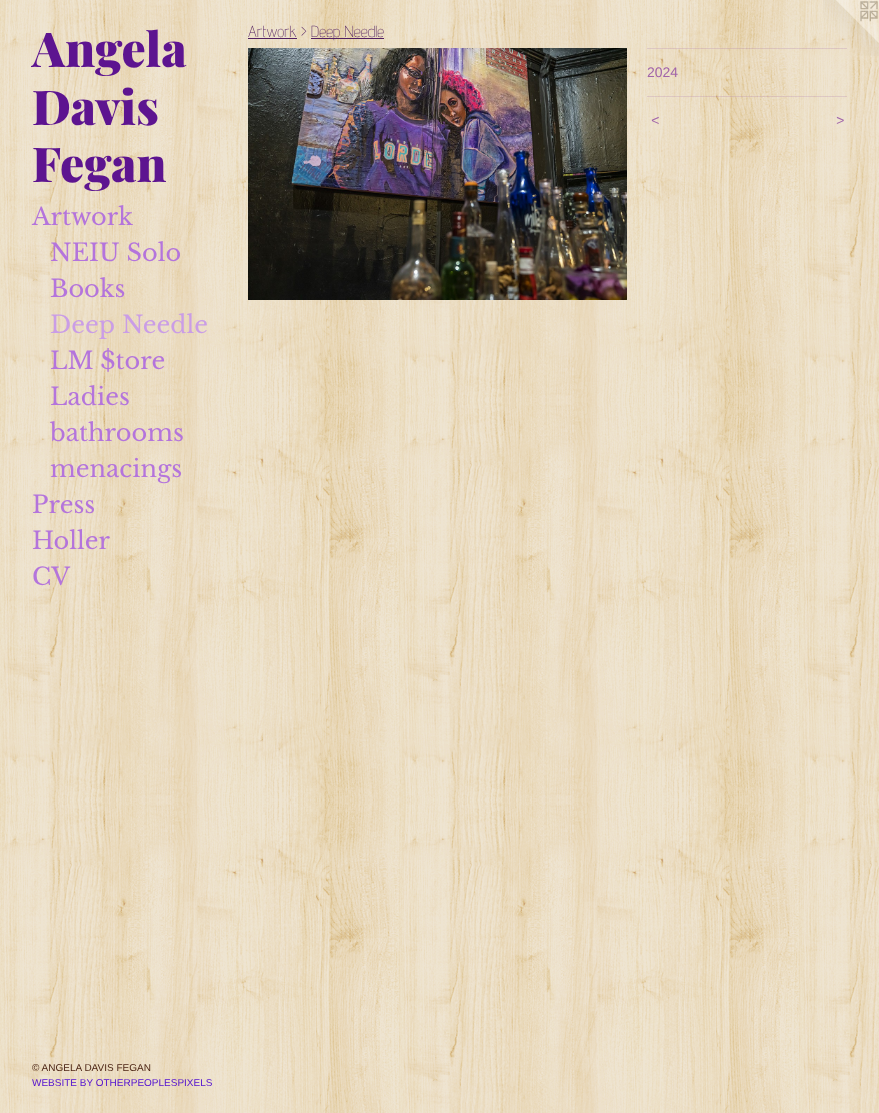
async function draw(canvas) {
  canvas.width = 879
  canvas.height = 1113
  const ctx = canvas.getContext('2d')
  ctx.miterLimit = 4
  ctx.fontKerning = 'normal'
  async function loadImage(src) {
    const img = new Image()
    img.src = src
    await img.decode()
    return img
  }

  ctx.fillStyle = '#fff'
  ctx.fillRect(0, 0, 879, 1113)
  ctx.drawImage(await loadImage('image0.png'), 0, 0, 879, 1113)
  ctx.font = '900 48px Playfair Display'
  ctx.fillStyle = '#5d1490'
  ctx.fillText('Angela', 32, 67)
  ctx.fillText('Davis', 32, 125)
  ctx.fillText('Fegan', 32, 182)
  ctx.font = '24px Libre Baskerville'
  ctx.fillStyle = '#b474dc'
  ctx.fillText('Artwork', 32, 225)
  ctx.fillText('NEIU Solo', 50, 261)
  ctx.fillText('Books', 50, 297)
  ctx.fillStyle = '#ca9de6'
  ctx.fillText('Deep Needle', 50, 333)
  ctx.fillStyle = '#b474dc'
  ctx.fillText('LM $tore', 50, 369)
  ctx.fillText('Ladies', 50, 405)
  ctx.fillText('bathrooms', 50, 441)
  ctx.fillText('menacings', 50, 477)
  ctx.fillText('Press', 32, 513)
  ctx.fillText('Holler', 32, 549)
  ctx.fillText('CV', 32, 585)
  ctx.font = '10px Liberation Sans'
  ctx.fillStyle = '#4c2515'
  ctx.fillText('© ANGELA DAVIS FEGAN', 32, 1071)
  ctx.fillStyle = '#5311d0'
  ctx.fillText('WEBSITE BY OTHERPEOPLESPIXELS', 32, 1086)
  ctx.font = '200 16px Advent Pro'
  ctx.fillStyle = '#511f61'
  ctx.fillText('Artwork >', 248, 37)
  ctx.fillRect(248, 38, 49, 1)
  ctx.fillRect(311, 38, 73, 1)
  ctx.fillText('Deep Needle', 311, 37)
  ctx.drawImage(await loadImage('image1.png'), 248, 48, 379, 252)
  ctx.drawImage(await loadImage('image2.png'), 823, 0, 56, 56)
  ctx.fillStyle = '#a164aa33'
  ctx.fillRect(647, 48, 200, 1)
  ctx.font = '14px Liberation Sans'
  ctx.fillStyle = '#a164aa'
  ctx.fillText('2024', 647, 77)
  ctx.fillStyle = '#a164aa33'
  ctx.fillRect(647, 96, 200, 1)
  ctx.letterSpacing = '1px'
  ctx.font = 'italic 14px Liberation Sans'
  ctx.fillStyle = '#a164aa'
  ctx.fillText('<', 651, 125)
  ctx.fillText('>', 836, 125)
}

draw(document.querySelector('canvas'))
